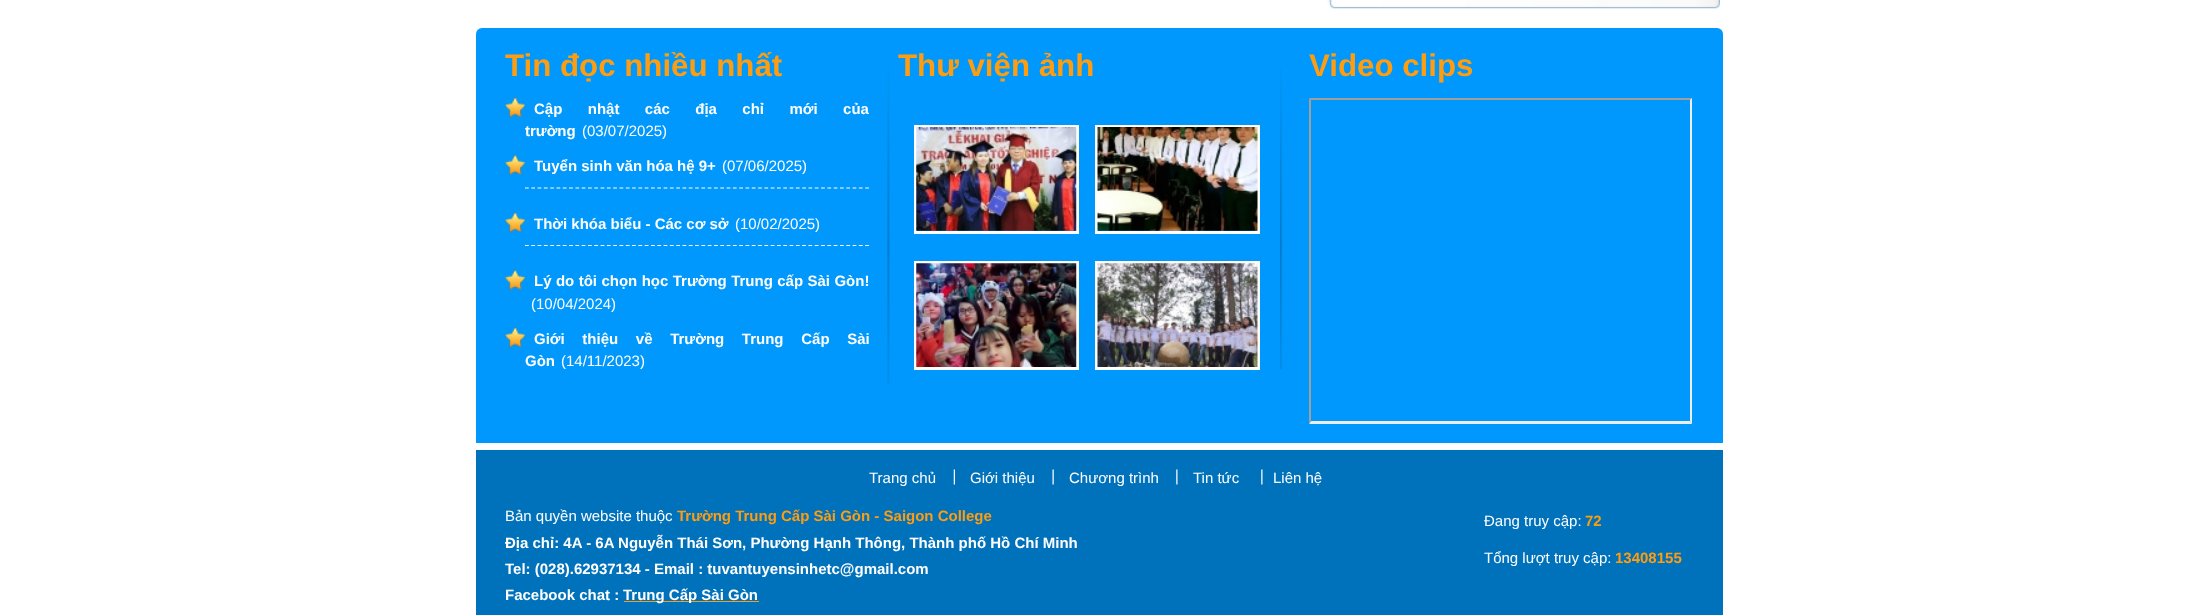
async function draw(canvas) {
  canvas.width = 2198
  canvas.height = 615
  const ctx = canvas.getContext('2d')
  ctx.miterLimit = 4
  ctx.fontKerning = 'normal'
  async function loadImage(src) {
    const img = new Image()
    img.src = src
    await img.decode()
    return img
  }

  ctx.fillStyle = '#fff'
  ctx.fillRect(0, 0, 2198, 615)
  ctx.drawImage(await loadImage('image0.png'), 1327, 0, 393, 2)
  ctx.drawImage(await loadImage('image1.png'), 1328, 2, 392, 7)
  ctx.fillStyle = '#0098fc'
  ctx.beginPath()
  ctx.roundRect(476, 28, 1247, 415, [6, 6, 0, 0])
  ctx.fill()
  ctx.drawImage(await loadImage('image2.png'), 887, 69, 3, 316)
  ctx.font = 'bold 31.25px Liberation Sans'
  ctx.fillStyle = '#ff9d11'
  ctx.fillText('Tin đọc nhiều nhất', 505, 76)
  ctx.drawImage(await loadImage('image3.png'), 505, 97, 20, 21)
  ctx.wordSpacing = '21.25px'
  ctx.font = 'bold 15px Liberation Sans'
  ctx.fillStyle = '#fff'
  ctx.fillText('Cập nhật các địa chỉ mới của', 534, 114)
  ctx.wordSpacing = '0px'
  ctx.fillText('trường', 525, 136)
  ctx.font = '15px Liberation Sans'
  ctx.fillText('(03/07/2025)', 582, 136)
  ctx.drawImage(await loadImage('image4.png'), 505, 154, 20, 21)
  ctx.beginPath()
  ctx.moveTo(525, 188)
  ctx.lineTo(869, 188)
  ctx.strokeStyle = '#fff'
  ctx.lineWidth = 1.2
  ctx.setLineDash([3.75, 2.55])
  ctx.stroke()
  ctx.font = 'bold 15px Liberation Sans'
  ctx.fillText('Tuyển sinh văn hóa hệ 9+', 534, 171)
  ctx.font = '15px Liberation Sans'
  ctx.fillText('(07/06/2025)', 722, 171)
  ctx.drawImage(await loadImage('image3.png'), 505, 212, 20, 21)
  ctx.beginPath()
  ctx.moveTo(525, 245.5)
  ctx.lineTo(869, 245.5)
  ctx.stroke()
  ctx.font = 'bold 15px Liberation Sans'
  ctx.fillText('Thời khóa biểu - Các cơ sở', 534, 229)
  ctx.font = '15px Liberation Sans'
  ctx.fillText('(10/02/2025)', 735, 229)
  ctx.drawImage(await loadImage('image4.png'), 505, 269, 20, 21)
  ctx.wordSpacing = '0.25px'
  ctx.font = 'bold 15px Liberation Sans'
  ctx.fillText('Lý do tôi chọn học Trường Trung cấp Sài Gòn!', 534, 286)
  ctx.wordSpacing = '0px'
  ctx.font = '15px Liberation Sans'
  ctx.fillText('(10/04/2024)', 531, 309)
  ctx.drawImage(await loadImage('image3.png'), 505, 327, 20, 21)
  ctx.wordSpacing = '13.5px'
  ctx.font = 'bold 15px Liberation Sans'
  ctx.fillText('Giới thiệu về Trường Trung Cấp Sài', 534, 344)
  ctx.wordSpacing = '0px'
  ctx.fillText('Gòn', 525, 366)
  ctx.font = '15px Liberation Sans'
  ctx.fillText('(14/11/2023)', 561, 366)
  ctx.drawImage(await loadImage('image5.png'), 1280, 68, 3, 302)
  ctx.font = 'bold 31.25px Liberation Sans'
  ctx.fillStyle = '#ff9d11'
  ctx.fillText('Thư viện ảnh', 898, 76)
  ctx.lineWidth = 3
  ctx.setLineDash([])
  ctx.strokeRect(915.5, 126.5, 162, 106)
  ctx.drawImage(await loadImage('image6.png'), 916, 127, 161, 104)
  ctx.strokeRect(1096.5, 126.5, 162, 106)
  ctx.drawImage(await loadImage('image7.png'), 1097, 127, 161, 104)
  ctx.strokeRect(915.5, 262.5, 162, 106)
  ctx.drawImage(await loadImage('image8.png'), 916, 263, 161, 104)
  ctx.strokeRect(1096.5, 262.5, 162, 106)
  ctx.drawImage(await loadImage('image9.png'), 1097, 263, 161, 104)
  ctx.fillText('Video clips', 1309, 76)
  ctx.fillStyle = '#9f9f9f'
  ctx.beginPath()
  ctx.moveTo(1309, 98)
  ctx.lineTo(1692, 98)
  ctx.lineTo(1690, 100)
  ctx.lineTo(1311, 100)
  ctx.closePath()
  ctx.fill()
  ctx.fillStyle = '#eee'
  ctx.beginPath()
  ctx.moveTo(1692, 98)
  ctx.lineTo(1692, 424)
  ctx.lineTo(1690, 421)
  ctx.lineTo(1690, 100)
  ctx.closePath()
  ctx.fill()
  ctx.beginPath()
  ctx.moveTo(1692, 424)
  ctx.lineTo(1309, 424)
  ctx.lineTo(1311, 421)
  ctx.lineTo(1690, 421)
  ctx.closePath()
  ctx.fill()
  ctx.fillStyle = '#9f9f9f'
  ctx.beginPath()
  ctx.moveTo(1309, 424)
  ctx.lineTo(1309, 98)
  ctx.lineTo(1311, 100)
  ctx.lineTo(1311, 421)
  ctx.closePath()
  ctx.fill()
  ctx.fillStyle = '#0071bb'
  ctx.fillRect(476, 450, 1247, 165)
  ctx.font = '15px Liberation Sans'
  ctx.fillStyle = '#fff'
  ctx.fillText('Trang chủ', 869, 483)
  ctx.drawImage(await loadImage('image10.png'), 953, 469, 2, 16)
  ctx.fillText('Giới thiệu', 970, 483)
  ctx.drawImage(await loadImage('image11.png'), 1052, 469, 2, 16)
  ctx.fillText('Chương trình', 1069, 483)
  ctx.drawImage(await loadImage('image12.png'), 1176, 469, 2, 16)
  ctx.fillText('Tin tức', 1193, 483)
  ctx.drawImage(await loadImage('image12.png'), 1261, 469, 2, 16)
  ctx.fillText('Liên hệ', 1273, 483)
  ctx.fillText('Bản quyền website thuộc', 505, 521)
  ctx.font = 'bold 15px Liberation Sans'
  ctx.fillStyle = '#ff9d11'
  ctx.fillText('Trường Trung Cấp Sài Gòn - Saigon College', 677, 521)
  ctx.fillStyle = '#fff'
  ctx.fillText('Địa chỉ: 4A - 6A Nguyễn Thái Sơn, Phường Hạnh Thông, Thành phố Hồ Chí Minh', 505, 548)
  ctx.fillText('Tel: (028).62937134 - Email : tuvantuyensinhetc@gmail.com', 505, 574)
  ctx.fillText('Facebook chat :', 505, 600)
  ctx.fillStyle = '#ff9d11'
  ctx.fillRect(624, 601, 135, 1)
  ctx.fillStyle = '#fff'
  ctx.fillText('Trung Cấp Sài Gòn', 623, 600)
  ctx.font = '15px Liberation Sans'
  ctx.fillText('Đang truy cập:', 1484, 526)
  ctx.font = 'bold 15px Liberation Sans'
  ctx.fillStyle = '#ff9d11'
  ctx.fillText('72', 1585, 526)
  ctx.font = '15px Liberation Sans'
  ctx.fillStyle = '#fff'
  ctx.fillText('Tổng lượt truy cập:', 1484, 563)
  ctx.font = 'bold 15px Liberation Sans'
  ctx.fillStyle = '#ff9d11'
  ctx.fillText('13408155', 1615, 563)
}

draw(document.querySelector('canvas'))
